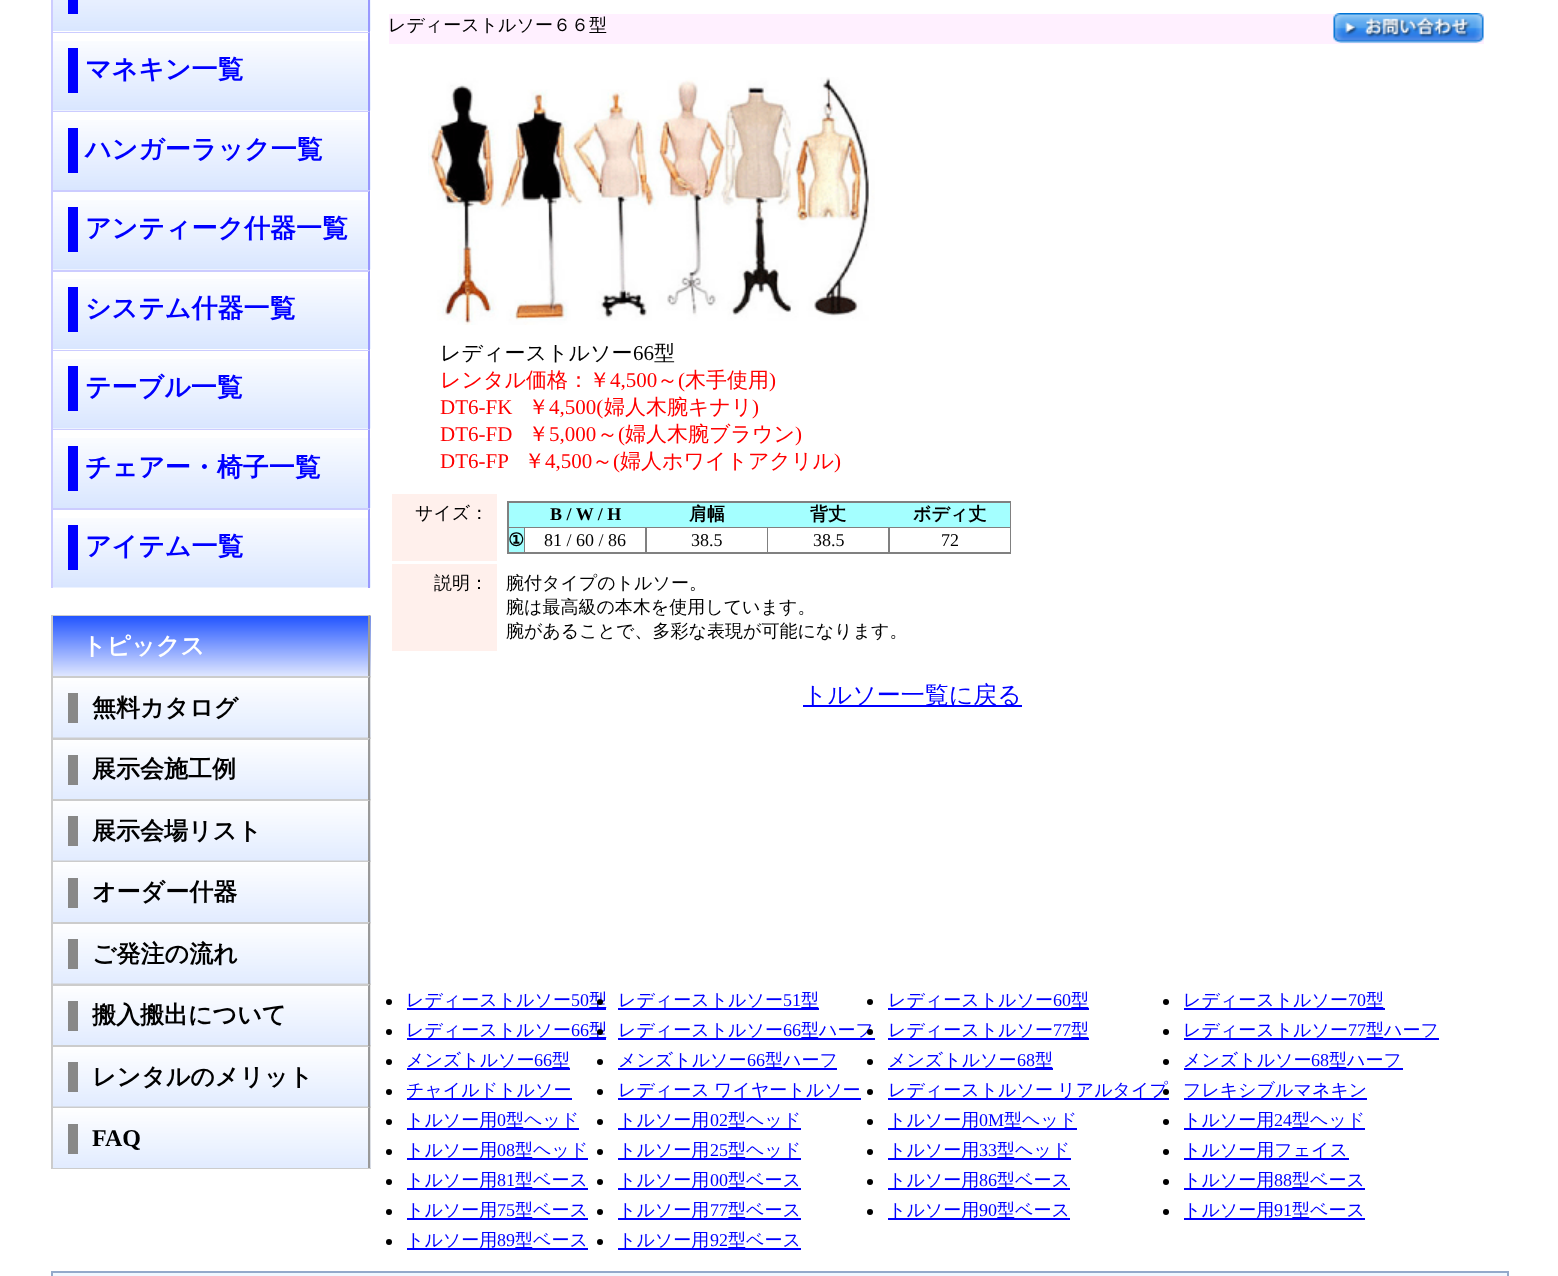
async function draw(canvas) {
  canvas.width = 1558
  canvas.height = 1276
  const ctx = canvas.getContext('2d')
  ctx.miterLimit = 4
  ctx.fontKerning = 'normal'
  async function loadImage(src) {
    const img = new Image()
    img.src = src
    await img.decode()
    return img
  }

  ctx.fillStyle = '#fff'
  ctx.fillRect(0, 0, 1558, 1276)
  ctx.drawImage(await loadImage('image0.png'), 53, 0, 318, 31)
  ctx.fillStyle = '#99f'
  ctx.beginPath()
  ctx.moveTo(370, -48)
  ctx.lineTo(370, 32)
  ctx.lineTo(368, 32)
  ctx.lineTo(368, -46)
  ctx.closePath()
  ctx.fill()
  ctx.fillStyle = '#ccf'
  ctx.fillRect(51, 0, 2, 32)
  ctx.fillStyle = '#00f'
  ctx.fillRect(68, 0, 10, 14)
  ctx.drawImage(await loadImage('image1.png'), 53, 41, 318, 70)
  ctx.fillStyle = '#ccf'
  ctx.beginPath()
  ctx.moveTo(51, 32)
  ctx.lineTo(370, 32)
  ctx.lineTo(368, 33)
  ctx.lineTo(52, 33)
  ctx.closePath()
  ctx.fill()
  ctx.fillStyle = '#99f'
  ctx.beginPath()
  ctx.moveTo(370, 32)
  ctx.lineTo(370, 111)
  ctx.lineTo(368, 111)
  ctx.lineTo(368, 33)
  ctx.closePath()
  ctx.fill()
  ctx.fillStyle = '#ccf'
  ctx.fillRect(51, 32, 2, 79)
  ctx.fillStyle = '#00f'
  ctx.fillRect(68, 48, 10, 45)
  ctx.font = 'bold 26px WenQuanYi Zen Hei'
  ctx.fillText('マネキン一覧', 85, 78)
  ctx.drawImage(await loadImage('image2.png'), 53, 120, 318, 70)
  ctx.fillStyle = '#ccf'
  ctx.beginPath()
  ctx.moveTo(51, 111)
  ctx.lineTo(370, 111)
  ctx.lineTo(368, 112)
  ctx.lineTo(52, 112)
  ctx.closePath()
  ctx.fill()
  ctx.fillStyle = '#99f'
  ctx.beginPath()
  ctx.moveTo(370, 111)
  ctx.lineTo(370, 190)
  ctx.lineTo(368, 190)
  ctx.lineTo(368, 112)
  ctx.closePath()
  ctx.fill()
  ctx.fillStyle = '#ccf'
  ctx.fillRect(51, 111, 2, 80)
  ctx.fillStyle = '#00f'
  ctx.fillRect(68, 128, 10, 45)
  ctx.fillText('ハンガーラック一覧', 85, 158)
  ctx.drawImage(await loadImage('image1.png'), 53, 200, 318, 70)
  ctx.fillStyle = '#ccf'
  ctx.beginPath()
  ctx.moveTo(51, 190)
  ctx.lineTo(370, 190)
  ctx.lineTo(368, 192)
  ctx.lineTo(52, 192)
  ctx.closePath()
  ctx.fill()
  ctx.fillStyle = '#99f'
  ctx.beginPath()
  ctx.moveTo(370, 190)
  ctx.lineTo(370, 270)
  ctx.lineTo(368, 270)
  ctx.lineTo(368, 192)
  ctx.closePath()
  ctx.fill()
  ctx.fillStyle = '#ccf'
  ctx.fillRect(51, 191, 2, 79)
  ctx.fillStyle = '#00f'
  ctx.fillRect(68, 207, 10, 45)
  ctx.fillText('アンティーク什器一覧', 85, 237)
  ctx.drawImage(await loadImage('image2.png'), 53, 279, 318, 70)
  ctx.fillStyle = '#ccf'
  ctx.beginPath()
  ctx.moveTo(51, 270)
  ctx.lineTo(370, 270)
  ctx.lineTo(368, 272)
  ctx.lineTo(52, 272)
  ctx.closePath()
  ctx.fill()
  ctx.fillStyle = '#99f'
  ctx.beginPath()
  ctx.moveTo(370, 270)
  ctx.lineTo(370, 350)
  ctx.lineTo(368, 350)
  ctx.lineTo(368, 272)
  ctx.closePath()
  ctx.fill()
  ctx.fillStyle = '#ccf'
  ctx.fillRect(51, 270, 2, 80)
  ctx.fillStyle = '#00f'
  ctx.fillRect(68, 287, 10, 45)
  ctx.fillText('システム什器一覧', 85, 317)
  ctx.drawImage(await loadImage('image1.png'), 53, 359, 318, 70)
  ctx.fillStyle = '#ccf'
  ctx.beginPath()
  ctx.moveTo(51, 350)
  ctx.lineTo(370, 350)
  ctx.lineTo(368, 351)
  ctx.lineTo(52, 351)
  ctx.closePath()
  ctx.fill()
  ctx.fillStyle = '#99f'
  ctx.beginPath()
  ctx.moveTo(370, 350)
  ctx.lineTo(370, 429)
  ctx.lineTo(368, 429)
  ctx.lineTo(368, 351)
  ctx.closePath()
  ctx.fill()
  ctx.fillStyle = '#ccf'
  ctx.fillRect(51, 350, 2, 79)
  ctx.fillStyle = '#00f'
  ctx.fillRect(68, 366, 10, 45)
  ctx.fillText('テーブル一覧', 85, 396)
  ctx.drawImage(await loadImage('image2.png'), 53, 438, 318, 70)
  ctx.fillStyle = '#ccf'
  ctx.beginPath()
  ctx.moveTo(51, 429)
  ctx.lineTo(370, 429)
  ctx.lineTo(368, 430)
  ctx.lineTo(52, 430)
  ctx.closePath()
  ctx.fill()
  ctx.fillStyle = '#99f'
  ctx.beginPath()
  ctx.moveTo(370, 429)
  ctx.lineTo(370, 508)
  ctx.lineTo(368, 508)
  ctx.lineTo(368, 430)
  ctx.closePath()
  ctx.fill()
  ctx.fillStyle = '#ccf'
  ctx.fillRect(51, 429, 2, 80)
  ctx.fillStyle = '#00f'
  ctx.fillRect(68, 446, 10, 45)
  ctx.fillText('チェアー・椅子一覧', 85, 476)
  ctx.drawImage(await loadImage('image1.png'), 53, 518, 318, 70)
  ctx.fillStyle = '#ccf'
  ctx.beginPath()
  ctx.moveTo(51, 508)
  ctx.lineTo(370, 508)
  ctx.lineTo(368, 510)
  ctx.lineTo(52, 510)
  ctx.closePath()
  ctx.fill()
  ctx.fillStyle = '#99f'
  ctx.beginPath()
  ctx.moveTo(370, 508)
  ctx.lineTo(370, 588)
  ctx.lineTo(368, 588)
  ctx.lineTo(368, 510)
  ctx.closePath()
  ctx.fill()
  ctx.fillStyle = '#ccf'
  ctx.fillRect(51, 509, 2, 79)
  ctx.fillStyle = '#00f'
  ctx.fillRect(68, 525, 10, 45)
  ctx.fillText('アイテム一覧', 85, 555)
  ctx.fillStyle = '#ccc'
  ctx.fillRect(51, 615, 320, 62)
  ctx.drawImage(await loadImage('image3.png'), 53, 616, 318, 60)
  ctx.fillStyle = '#999'
  ctx.beginPath()
  ctx.moveTo(370, 615)
  ctx.lineTo(370, 676)
  ctx.lineTo(368, 676)
  ctx.lineTo(368, 616)
  ctx.closePath()
  ctx.fill()
  ctx.font = 'bold 24px WenQuanYi Zen Hei'
  ctx.fillStyle = '#fff'
  ctx.fillText('トピックス', 82, 654)
  ctx.fillStyle = '#ccc'
  ctx.fillRect(53, 677, 318, 492)
  ctx.drawImage(await loadImage('image4.png'), 53, 677, 318, 61)
  ctx.beginPath()
  ctx.moveTo(51, 676)
  ctx.lineTo(370, 676)
  ctx.lineTo(368, 678)
  ctx.lineTo(52, 678)
  ctx.closePath()
  ctx.fill()
  ctx.fillStyle = '#999'
  ctx.beginPath()
  ctx.moveTo(370, 676)
  ctx.lineTo(370, 738)
  ctx.lineTo(368, 738)
  ctx.lineTo(368, 678)
  ctx.closePath()
  ctx.fill()
  ctx.fillStyle = '#ccc'
  ctx.fillRect(51, 677, 2, 61)
  ctx.fillStyle = '#888'
  ctx.fillRect(68, 693, 10, 30)
  ctx.fillStyle = '#000'
  ctx.fillText('無料カタログ', 92, 716)
  ctx.drawImage(await loadImage('image5.png'), 53, 739, 318, 60)
  ctx.fillStyle = '#ccc'
  ctx.beginPath()
  ctx.moveTo(51, 738)
  ctx.lineTo(370, 738)
  ctx.lineTo(368, 740)
  ctx.lineTo(52, 740)
  ctx.closePath()
  ctx.fill()
  ctx.fillStyle = '#999'
  ctx.beginPath()
  ctx.moveTo(370, 738)
  ctx.lineTo(370, 800)
  ctx.lineTo(368, 800)
  ctx.lineTo(368, 740)
  ctx.closePath()
  ctx.fill()
  ctx.fillStyle = '#ccc'
  ctx.fillRect(51, 738, 2, 62)
  ctx.fillStyle = '#888'
  ctx.fillRect(68, 755, 10, 30)
  ctx.fillStyle = '#000'
  ctx.fillText('展示会施工例', 92, 777)
  ctx.drawImage(await loadImage('image4.png'), 53, 800, 318, 61)
  ctx.fillStyle = '#ccc'
  ctx.beginPath()
  ctx.moveTo(51, 800)
  ctx.lineTo(370, 800)
  ctx.lineTo(368, 801)
  ctx.lineTo(52, 801)
  ctx.closePath()
  ctx.fill()
  ctx.fillStyle = '#999'
  ctx.beginPath()
  ctx.moveTo(370, 800)
  ctx.lineTo(370, 861)
  ctx.lineTo(368, 861)
  ctx.lineTo(368, 801)
  ctx.closePath()
  ctx.fill()
  ctx.fillStyle = '#ccc'
  ctx.fillRect(51, 800, 2, 123)
  ctx.fillStyle = '#888'
  ctx.fillRect(68, 816, 10, 30)
  ctx.fillStyle = '#000'
  ctx.fillText('展示会場リスト', 92, 839)
  ctx.drawImage(await loadImage('image5.png'), 53, 862, 318, 60)
  ctx.fillStyle = '#999'
  ctx.beginPath()
  ctx.moveTo(370, 861)
  ctx.lineTo(370, 922)
  ctx.lineTo(368, 922)
  ctx.lineTo(368, 862)
  ctx.closePath()
  ctx.fill()
  ctx.fillStyle = '#888'
  ctx.fillRect(68, 878, 10, 30)
  ctx.fillStyle = '#000'
  ctx.fillText('オーダー什器', 92, 900)
  ctx.drawImage(await loadImage('image4.png'), 53, 923, 318, 61)
  ctx.fillStyle = '#ccc'
  ctx.beginPath()
  ctx.moveTo(51, 922)
  ctx.lineTo(370, 922)
  ctx.lineTo(368, 924)
  ctx.lineTo(52, 924)
  ctx.closePath()
  ctx.fill()
  ctx.fillStyle = '#999'
  ctx.beginPath()
  ctx.moveTo(370, 922)
  ctx.lineTo(370, 984)
  ctx.lineTo(368, 984)
  ctx.lineTo(368, 924)
  ctx.closePath()
  ctx.fill()
  ctx.fillStyle = '#ccc'
  ctx.fillRect(51, 923, 2, 61)
  ctx.fillStyle = '#888'
  ctx.fillRect(68, 939, 10, 30)
  ctx.fillStyle = '#000'
  ctx.fillText('ご発注の流れ', 92, 962)
  ctx.drawImage(await loadImage('image5.png'), 53, 985, 318, 60)
  ctx.fillStyle = '#ccc'
  ctx.beginPath()
  ctx.moveTo(51, 984)
  ctx.lineTo(370, 984)
  ctx.lineTo(368, 986)
  ctx.lineTo(52, 986)
  ctx.closePath()
  ctx.fill()
  ctx.fillStyle = '#999'
  ctx.beginPath()
  ctx.moveTo(370, 984)
  ctx.lineTo(370, 1046)
  ctx.lineTo(368, 1046)
  ctx.lineTo(368, 986)
  ctx.closePath()
  ctx.fill()
  ctx.fillStyle = '#ccc'
  ctx.fillRect(51, 984, 2, 62)
  ctx.fillStyle = '#888'
  ctx.fillRect(68, 1001, 10, 30)
  ctx.fillStyle = '#000'
  ctx.fillText('搬入搬出について', 92, 1023)
  ctx.drawImage(await loadImage('image4.png'), 53, 1046, 318, 61)
  ctx.fillStyle = '#ccc'
  ctx.beginPath()
  ctx.moveTo(51, 1046)
  ctx.lineTo(370, 1046)
  ctx.lineTo(368, 1047)
  ctx.lineTo(52, 1047)
  ctx.closePath()
  ctx.fill()
  ctx.fillStyle = '#999'
  ctx.beginPath()
  ctx.moveTo(370, 1046)
  ctx.lineTo(370, 1107)
  ctx.lineTo(368, 1107)
  ctx.lineTo(368, 1047)
  ctx.closePath()
  ctx.fill()
  ctx.fillStyle = '#ccc'
  ctx.fillRect(51, 1046, 2, 123)
  ctx.fillStyle = '#888'
  ctx.fillRect(68, 1062, 10, 30)
  ctx.fillStyle = '#000'
  ctx.fillText('レンタルのメリット', 92, 1085)
  ctx.drawImage(await loadImage('image5.png'), 53, 1108, 318, 60)
  ctx.fillStyle = '#999'
  ctx.beginPath()
  ctx.moveTo(370, 1107)
  ctx.lineTo(370, 1168)
  ctx.lineTo(368, 1168)
  ctx.lineTo(368, 1108)
  ctx.closePath()
  ctx.fill()
  ctx.fillStyle = '#888'
  ctx.fillRect(68, 1124, 10, 30)
  ctx.font = 'bold 24px Liberation Serif'
  ctx.fillStyle = '#000'
  ctx.fillText('FAQ', 92, 1146)
  ctx.fillStyle = '#fff0ff'
  ctx.fillRect(389, 14, 1095, 30)
  ctx.font = '500 18px WenQuanYi Zen Hei'
  ctx.fillStyle = '#000'
  ctx.fillText('レディーストルソー６６型', 388, 31)
  ctx.drawImage(await loadImage('image6.png'), 1333, 13, 151, 30)
  ctx.drawImage(await loadImage('image7.png'), 428, 77, 447, 248)
  ctx.font = '500 21px WenQuanYi Zen Hei'
  ctx.fillText('レディーストルソー', 440, 360)
  ctx.font = '21px Liberation Serif'
  ctx.fillText('66', 633, 360)
  ctx.font = '500 21px WenQuanYi Zen Hei'
  ctx.fillText('型', 654, 360)
  ctx.fillStyle = '#f00'
  ctx.fillText('レンタル価格：￥', 440, 387)
  ctx.font = '21px Liberation Serif'
  ctx.fillText('4,500', 610, 387)
  ctx.font = '500 21px WenQuanYi Zen Hei'
  ctx.fillText('～', 657, 387)
  ctx.font = '21px Liberation Serif'
  ctx.fillText('(', 678, 387)
  ctx.font = '500 21px WenQuanYi Zen Hei'
  ctx.fillText('木手使用', 685, 387)
  ctx.font = '21px Liberation Serif'
  ctx.fillText(')', 769, 387)
  ctx.fillText('DT6-FK', 440, 414)
  ctx.font = '500 21px WenQuanYi Zen Hei'
  ctx.fillText('￥', 528, 414)
  ctx.font = '21px Liberation Serif'
  ctx.fillText('4,500(', 549, 414)
  ctx.font = '500 21px WenQuanYi Zen Hei'
  ctx.fillText('婦人木腕キナリ', 604, 414)
  ctx.font = '21px Liberation Serif'
  ctx.fillText(')', 752, 414)
  ctx.fillText('DT6-FD', 440, 441)
  ctx.font = '500 21px WenQuanYi Zen Hei'
  ctx.fillText('￥', 528, 441)
  ctx.font = '21px Liberation Serif'
  ctx.fillText('5,000', 549, 441)
  ctx.font = '500 21px WenQuanYi Zen Hei'
  ctx.fillText('～', 597, 441)
  ctx.font = '21px Liberation Serif'
  ctx.fillText('(', 618, 441)
  ctx.font = '500 21px WenQuanYi Zen Hei'
  ctx.fillText('婦人木腕ブラウン', 625, 441)
  ctx.font = '21px Liberation Serif'
  ctx.fillText(')', 795, 441)
  ctx.fillText('DT6-FP', 440, 468)
  ctx.font = '500 21px WenQuanYi Zen Hei'
  ctx.fillText('￥', 524, 468)
  ctx.font = '21px Liberation Serif'
  ctx.fillText('4,500', 545, 468)
  ctx.font = '500 21px WenQuanYi Zen Hei'
  ctx.fillText('～', 592, 468)
  ctx.font = '21px Liberation Serif'
  ctx.fillText('(', 613, 468)
  ctx.font = '500 21px WenQuanYi Zen Hei'
  ctx.fillText('婦人ホワイトアクリル', 620, 468)
  ctx.font = '21px Liberation Serif'
  ctx.fillText(')', 834, 468)
  ctx.fillStyle = '#fff0ec'
  ctx.fillRect(392, 494, 105, 67)
  ctx.font = '500 18px WenQuanYi Zen Hei'
  ctx.fillStyle = '#000'
  ctx.fillText('サイズ：', 415, 519)
  ctx.fillStyle = '#808080'
  ctx.fillRect(507, 501, 504, 53)
  ctx.fillStyle = '#a4ffff'
  ctx.fillRect(509, 503, 501, 24)
  ctx.font = 'bold 18px Liberation Serif'
  ctx.fillStyle = '#000'
  ctx.fillText('B / W / H', 550, 520)
  ctx.font = 'bold 18px WenQuanYi Zen Hei'
  ctx.fillText('肩幅', 689, 520)
  ctx.fillText('背丈', 810, 520)
  ctx.fillText('ボディ丈', 913, 520)
  ctx.fillStyle = '#a4ffff'
  ctx.fillRect(509, 528, 15, 24)
  ctx.font = 'bold 18px DejaVu Sans'
  ctx.fillStyle = '#000'
  ctx.fillText('①', 508, 546)
  ctx.fillStyle = '#fff'
  ctx.fillRect(525, 528, 120, 24)
  ctx.font = '18px Liberation Serif'
  ctx.fillStyle = '#000'
  ctx.fillText('81 / 60 / 86', 544, 546)
  ctx.fillStyle = '#fff'
  ctx.fillRect(647, 528, 120, 24)
  ctx.fillStyle = '#000'
  ctx.fillText('38.5', 691, 546)
  ctx.fillStyle = '#fff'
  ctx.fillRect(768, 528, 120, 24)
  ctx.fillStyle = '#000'
  ctx.fillText('38.5', 813, 546)
  ctx.fillStyle = '#fff'
  ctx.fillRect(890, 528, 120, 24)
  ctx.fillStyle = '#000'
  ctx.fillText('72', 941, 546)
  ctx.fillStyle = '#fff0ec'
  ctx.fillRect(392, 564, 105, 87)
  ctx.font = '500 18px WenQuanYi Zen Hei'
  ctx.fillStyle = '#000'
  ctx.fillText('説明：', 434, 589)
  ctx.fillText('腕付タイプのトルソー。', 506, 589)
  ctx.fillText('腕は最高級の本木を使用しています。', 506, 613)
  ctx.fillText('腕があることで、多彩な表現が可能になります。', 506, 637)
  ctx.fillStyle = '#00f'
  ctx.fillRect(803, 705, 219, 2)
  ctx.font = '500 24px WenQuanYi Zen Hei'
  ctx.fillText('トルソー一覧に戻る', 803, 703)
  ctx.fillStyle = '#000'
  ctx.beginPath()
  ctx.arc(389, 1002, 3, 0, 2 * Math.PI)
  ctx.fill()
  ctx.fillStyle = '#00f'
  ctx.fillRect(407, 1008, 199, 2)
  ctx.font = '500 18px WenQuanYi Zen Hei'
  ctx.fillText('レディーストルソー', 406, 1006)
  ctx.font = '18px Liberation Serif'
  ctx.fillText('50', 571, 1006)
  ctx.font = '500 18px WenQuanYi Zen Hei'
  ctx.fillText('型', 589, 1006)
  ctx.fillStyle = '#000'
  ctx.beginPath()
  ctx.arc(389, 1032, 3, 0, 2 * Math.PI)
  ctx.fill()
  ctx.fillStyle = '#00f'
  ctx.fillRect(407, 1038, 199, 2)
  ctx.fillText('レディーストルソー', 406, 1036)
  ctx.font = '18px Liberation Serif'
  ctx.fillText('66', 571, 1036)
  ctx.font = '500 18px WenQuanYi Zen Hei'
  ctx.fillText('型', 589, 1036)
  ctx.fillStyle = '#000'
  ctx.beginPath()
  ctx.arc(389, 1062, 3, 0, 2 * Math.PI)
  ctx.fill()
  ctx.fillStyle = '#00f'
  ctx.fillRect(407, 1068, 163, 2)
  ctx.fillText('メンズトルソー', 406, 1066)
  ctx.font = '18px Liberation Serif'
  ctx.fillText('66', 534, 1066)
  ctx.font = '500 18px WenQuanYi Zen Hei'
  ctx.fillText('型', 552, 1066)
  ctx.fillStyle = '#000'
  ctx.beginPath()
  ctx.arc(389, 1092, 3, 0, 2 * Math.PI)
  ctx.fill()
  ctx.fillStyle = '#00f'
  ctx.fillRect(407, 1098, 165, 2)
  ctx.fillText('チャイルドトルソー', 406, 1096)
  ctx.fillStyle = '#000'
  ctx.beginPath()
  ctx.arc(389, 1122, 3, 0, 2 * Math.PI)
  ctx.fill()
  ctx.fillStyle = '#00f'
  ctx.fillRect(407, 1128, 172, 2)
  ctx.fillText('トルソー用', 406, 1126)
  ctx.font = '18px Liberation Serif'
  ctx.fillText('0', 497, 1126)
  ctx.font = '500 18px WenQuanYi Zen Hei'
  ctx.fillText('型ヘッド', 506, 1126)
  ctx.fillStyle = '#000'
  ctx.beginPath()
  ctx.arc(389, 1152, 3, 0, 2 * Math.PI)
  ctx.fill()
  ctx.fillStyle = '#00f'
  ctx.fillRect(407, 1158, 181, 2)
  ctx.fillText('トルソー用', 406, 1156)
  ctx.font = '18px Liberation Serif'
  ctx.fillText('08', 497, 1156)
  ctx.font = '500 18px WenQuanYi Zen Hei'
  ctx.fillText('型ヘッド', 515, 1156)
  ctx.fillStyle = '#000'
  ctx.beginPath()
  ctx.arc(389, 1182, 3, 0, 2 * Math.PI)
  ctx.fill()
  ctx.fillStyle = '#00f'
  ctx.fillRect(407, 1188, 181, 2)
  ctx.fillText('トルソー用', 406, 1186)
  ctx.font = '18px Liberation Serif'
  ctx.fillText('81', 497, 1186)
  ctx.font = '500 18px WenQuanYi Zen Hei'
  ctx.fillText('型ベース', 515, 1186)
  ctx.fillStyle = '#000'
  ctx.beginPath()
  ctx.arc(389, 1212, 3, 0, 2 * Math.PI)
  ctx.fill()
  ctx.fillStyle = '#00f'
  ctx.fillRect(407, 1218, 181, 2)
  ctx.fillText('トルソー用', 406, 1216)
  ctx.font = '18px Liberation Serif'
  ctx.fillText('75', 497, 1216)
  ctx.font = '500 18px WenQuanYi Zen Hei'
  ctx.fillText('型ベース', 515, 1216)
  ctx.fillStyle = '#000'
  ctx.beginPath()
  ctx.arc(389, 1242, 3, 0, 2 * Math.PI)
  ctx.fill()
  ctx.fillStyle = '#00f'
  ctx.fillRect(407, 1248, 181, 2)
  ctx.fillText('トルソー用', 406, 1246)
  ctx.font = '18px Liberation Serif'
  ctx.fillText('89', 497, 1246)
  ctx.font = '500 18px WenQuanYi Zen Hei'
  ctx.fillText('型ベース', 515, 1246)
  ctx.fillStyle = '#000'
  ctx.beginPath()
  ctx.arc(600, 1002, 3, 0, 2 * Math.PI)
  ctx.fill()
  ctx.fillStyle = '#00f'
  ctx.fillRect(618, 1008, 201, 2)
  ctx.fillText('レディーストルソー', 618, 1006)
  ctx.font = '18px Liberation Serif'
  ctx.fillText('51', 783, 1006)
  ctx.font = '500 18px WenQuanYi Zen Hei'
  ctx.fillText('型', 801, 1006)
  ctx.fillStyle = '#000'
  ctx.beginPath()
  ctx.arc(600, 1032, 3, 0, 2 * Math.PI)
  ctx.fill()
  ctx.fillStyle = '#00f'
  ctx.fillRect(618, 1038, 257, 2)
  ctx.fillText('レディーストルソー', 618, 1036)
  ctx.font = '18px Liberation Serif'
  ctx.fillText('66', 783, 1036)
  ctx.font = '500 18px WenQuanYi Zen Hei'
  ctx.fillText('型ハーフ', 801, 1036)
  ctx.fillStyle = '#000'
  ctx.beginPath()
  ctx.arc(600, 1062, 3, 0, 2 * Math.PI)
  ctx.fill()
  ctx.fillStyle = '#00f'
  ctx.fillRect(618, 1068, 219, 2)
  ctx.fillText('メンズトルソー', 618, 1066)
  ctx.font = '18px Liberation Serif'
  ctx.fillText('66', 747, 1066)
  ctx.font = '500 18px WenQuanYi Zen Hei'
  ctx.fillText('型ハーフ', 765, 1066)
  ctx.fillStyle = '#000'
  ctx.beginPath()
  ctx.arc(600, 1092, 3, 0, 2 * Math.PI)
  ctx.fill()
  ctx.fillStyle = '#00f'
  ctx.fillRect(618, 1098, 243, 2)
  ctx.wordSpacing = '-1px'
  ctx.fillText('レディース ワイヤートルソー', 618, 1096)
  ctx.fillStyle = '#000'
  ctx.beginPath()
  ctx.arc(600, 1122, 3, 0, 2 * Math.PI)
  ctx.fill()
  ctx.fillStyle = '#00f'
  ctx.fillRect(618, 1128, 183, 2)
  ctx.wordSpacing = '0px'
  ctx.fillText('トルソー用', 618, 1126)
  ctx.font = '18px Liberation Serif'
  ctx.fillText('02', 710, 1126)
  ctx.font = '500 18px WenQuanYi Zen Hei'
  ctx.fillText('型ヘッド', 728, 1126)
  ctx.fillStyle = '#000'
  ctx.beginPath()
  ctx.arc(600, 1152, 3, 0, 2 * Math.PI)
  ctx.fill()
  ctx.fillStyle = '#00f'
  ctx.fillRect(618, 1158, 183, 2)
  ctx.fillText('トルソー用', 618, 1156)
  ctx.font = '18px Liberation Serif'
  ctx.fillText('25', 710, 1156)
  ctx.font = '500 18px WenQuanYi Zen Hei'
  ctx.fillText('型ヘッド', 728, 1156)
  ctx.fillStyle = '#000'
  ctx.beginPath()
  ctx.arc(600, 1182, 3, 0, 2 * Math.PI)
  ctx.fill()
  ctx.fillStyle = '#00f'
  ctx.fillRect(618, 1188, 183, 2)
  ctx.fillText('トルソー用', 618, 1186)
  ctx.font = '18px Liberation Serif'
  ctx.fillText('00', 710, 1186)
  ctx.font = '500 18px WenQuanYi Zen Hei'
  ctx.fillText('型ベース', 728, 1186)
  ctx.fillStyle = '#000'
  ctx.beginPath()
  ctx.arc(600, 1212, 3, 0, 2 * Math.PI)
  ctx.fill()
  ctx.fillStyle = '#00f'
  ctx.fillRect(618, 1218, 183, 2)
  ctx.fillText('トルソー用', 618, 1216)
  ctx.font = '18px Liberation Serif'
  ctx.fillText('77', 710, 1216)
  ctx.font = '500 18px WenQuanYi Zen Hei'
  ctx.fillText('型ベース', 728, 1216)
  ctx.fillStyle = '#000'
  ctx.beginPath()
  ctx.arc(600, 1242, 3, 0, 2 * Math.PI)
  ctx.fill()
  ctx.fillStyle = '#00f'
  ctx.fillRect(618, 1248, 183, 2)
  ctx.fillText('トルソー用', 618, 1246)
  ctx.font = '18px Liberation Serif'
  ctx.fillText('92', 710, 1246)
  ctx.font = '500 18px WenQuanYi Zen Hei'
  ctx.fillText('型ベース', 728, 1246)
  ctx.fillStyle = '#000'
  ctx.beginPath()
  ctx.arc(870, 1002, 3, 0, 2 * Math.PI)
  ctx.fill()
  ctx.fillStyle = '#00f'
  ctx.fillRect(888, 1008, 201, 2)
  ctx.fillText('レディーストルソー', 888, 1006)
  ctx.font = '18px Liberation Serif'
  ctx.fillText('60', 1053, 1006)
  ctx.font = '500 18px WenQuanYi Zen Hei'
  ctx.fillText('型', 1071, 1006)
  ctx.fillStyle = '#000'
  ctx.beginPath()
  ctx.arc(870, 1032, 3, 0, 2 * Math.PI)
  ctx.fill()
  ctx.fillStyle = '#00f'
  ctx.fillRect(888, 1038, 201, 2)
  ctx.fillText('レディーストルソー', 888, 1036)
  ctx.font = '18px Liberation Serif'
  ctx.fillText('77', 1053, 1036)
  ctx.font = '500 18px WenQuanYi Zen Hei'
  ctx.fillText('型', 1071, 1036)
  ctx.fillStyle = '#000'
  ctx.beginPath()
  ctx.arc(870, 1062, 3, 0, 2 * Math.PI)
  ctx.fill()
  ctx.fillStyle = '#00f'
  ctx.fillRect(888, 1068, 165, 2)
  ctx.fillText('メンズトルソー', 888, 1066)
  ctx.font = '18px Liberation Serif'
  ctx.fillText('68', 1017, 1066)
  ctx.font = '500 18px WenQuanYi Zen Hei'
  ctx.fillText('型', 1035, 1066)
  ctx.fillStyle = '#000'
  ctx.beginPath()
  ctx.arc(870, 1092, 3, 0, 2 * Math.PI)
  ctx.fill()
  ctx.fillStyle = '#00f'
  ctx.fillRect(888, 1098, 281, 2)
  ctx.wordSpacing = '-1px'
  ctx.fillText('レディーストルソー リアルタイプ', 888, 1096)
  ctx.fillStyle = '#000'
  ctx.beginPath()
  ctx.arc(870, 1122, 3, 0, 2 * Math.PI)
  ctx.fill()
  ctx.fillStyle = '#00f'
  ctx.fillRect(888, 1128, 189, 2)
  ctx.wordSpacing = '0px'
  ctx.fillText('トルソー用', 888, 1126)
  ctx.font = '18px Liberation Serif'
  ctx.fillText('0M', 979, 1126)
  ctx.font = '500 18px WenQuanYi Zen Hei'
  ctx.fillText('型ヘッド', 1004, 1126)
  ctx.fillStyle = '#000'
  ctx.beginPath()
  ctx.arc(870, 1152, 3, 0, 2 * Math.PI)
  ctx.fill()
  ctx.fillStyle = '#00f'
  ctx.fillRect(888, 1158, 183, 2)
  ctx.fillText('トルソー用', 888, 1156)
  ctx.font = '18px Liberation Serif'
  ctx.fillText('33', 979, 1156)
  ctx.font = '500 18px WenQuanYi Zen Hei'
  ctx.fillText('型ヘッド', 997, 1156)
  ctx.fillStyle = '#000'
  ctx.beginPath()
  ctx.arc(870, 1182, 3, 0, 2 * Math.PI)
  ctx.fill()
  ctx.fillStyle = '#00f'
  ctx.fillRect(888, 1188, 182, 2)
  ctx.fillText('トルソー用', 888, 1186)
  ctx.font = '18px Liberation Serif'
  ctx.fillText('86', 979, 1186)
  ctx.font = '500 18px WenQuanYi Zen Hei'
  ctx.fillText('型ベース', 997, 1186)
  ctx.fillStyle = '#000'
  ctx.beginPath()
  ctx.arc(870, 1212, 3, 0, 2 * Math.PI)
  ctx.fill()
  ctx.fillStyle = '#00f'
  ctx.fillRect(888, 1218, 182, 2)
  ctx.fillText('トルソー用', 888, 1216)
  ctx.font = '18px Liberation Serif'
  ctx.fillText('90', 979, 1216)
  ctx.font = '500 18px WenQuanYi Zen Hei'
  ctx.fillText('型ベース', 997, 1216)
  ctx.fillStyle = '#000'
  ctx.beginPath()
  ctx.arc(1166, 1002, 3, 0, 2 * Math.PI)
  ctx.fill()
  ctx.fillStyle = '#00f'
  ctx.fillRect(1184, 1008, 201, 2)
  ctx.fillText('レディーストルソー', 1183, 1006)
  ctx.font = '18px Liberation Serif'
  ctx.fillText('70', 1348, 1006)
  ctx.font = '500 18px WenQuanYi Zen Hei'
  ctx.fillText('型', 1366, 1006)
  ctx.fillStyle = '#000'
  ctx.beginPath()
  ctx.arc(1166, 1032, 3, 0, 2 * Math.PI)
  ctx.fill()
  ctx.fillStyle = '#00f'
  ctx.fillRect(1184, 1038, 255, 2)
  ctx.fillText('レディーストルソー', 1183, 1036)
  ctx.font = '18px Liberation Serif'
  ctx.fillText('77', 1348, 1036)
  ctx.font = '500 18px WenQuanYi Zen Hei'
  ctx.fillText('型ハーフ', 1366, 1036)
  ctx.fillStyle = '#000'
  ctx.beginPath()
  ctx.arc(1166, 1062, 3, 0, 2 * Math.PI)
  ctx.fill()
  ctx.fillStyle = '#00f'
  ctx.fillRect(1184, 1068, 219, 2)
  ctx.fillText('メンズトルソー', 1183, 1066)
  ctx.font = '18px Liberation Serif'
  ctx.fillText('68', 1311, 1066)
  ctx.font = '500 18px WenQuanYi Zen Hei'
  ctx.fillText('型ハーフ', 1329, 1066)
  ctx.fillStyle = '#000'
  ctx.beginPath()
  ctx.arc(1166, 1092, 3, 0, 2 * Math.PI)
  ctx.fill()
  ctx.fillStyle = '#00f'
  ctx.fillRect(1184, 1098, 183, 2)
  ctx.fillText('フレキシブルマネキン', 1183, 1096)
  ctx.fillStyle = '#000'
  ctx.beginPath()
  ctx.arc(1166, 1122, 3, 0, 2 * Math.PI)
  ctx.fill()
  ctx.fillStyle = '#00f'
  ctx.fillRect(1184, 1128, 181, 2)
  ctx.fillText('トルソー用', 1183, 1126)
  ctx.font = '18px Liberation Serif'
  ctx.fillText('24', 1274, 1126)
  ctx.font = '500 18px WenQuanYi Zen Hei'
  ctx.fillText('型ヘッド', 1292, 1126)
  ctx.fillStyle = '#000'
  ctx.beginPath()
  ctx.arc(1166, 1152, 3, 0, 2 * Math.PI)
  ctx.fill()
  ctx.fillStyle = '#00f'
  ctx.fillRect(1184, 1158, 165, 2)
  ctx.fillText('トルソー用フェイス', 1183, 1156)
  ctx.fillStyle = '#000'
  ctx.beginPath()
  ctx.arc(1166, 1182, 3, 0, 2 * Math.PI)
  ctx.fill()
  ctx.fillStyle = '#00f'
  ctx.fillRect(1184, 1188, 181, 2)
  ctx.fillText('トルソー用', 1183, 1186)
  ctx.font = '18px Liberation Serif'
  ctx.fillText('88', 1274, 1186)
  ctx.font = '500 18px WenQuanYi Zen Hei'
  ctx.fillText('型ベース', 1292, 1186)
  ctx.fillStyle = '#000'
  ctx.beginPath()
  ctx.arc(1166, 1212, 3, 0, 2 * Math.PI)
  ctx.fill()
  ctx.fillStyle = '#00f'
  ctx.fillRect(1184, 1218, 181, 2)
  ctx.fillText('トルソー用', 1183, 1216)
  ctx.font = '18px Liberation Serif'
  ctx.fillText('91', 1274, 1216)
  ctx.font = '500 18px WenQuanYi Zen Hei'
  ctx.fillText('型ベース', 1292, 1216)
  ctx.fillStyle = '#f0f8ff'
  ctx.beginPath()
  ctx.rect(52, 1272, 1456, 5)
  ctx.fill()
  ctx.strokeStyle = '#93a9ca'
  ctx.lineWidth = 2
  ctx.stroke()
}

draw(document.querySelector('canvas'))
